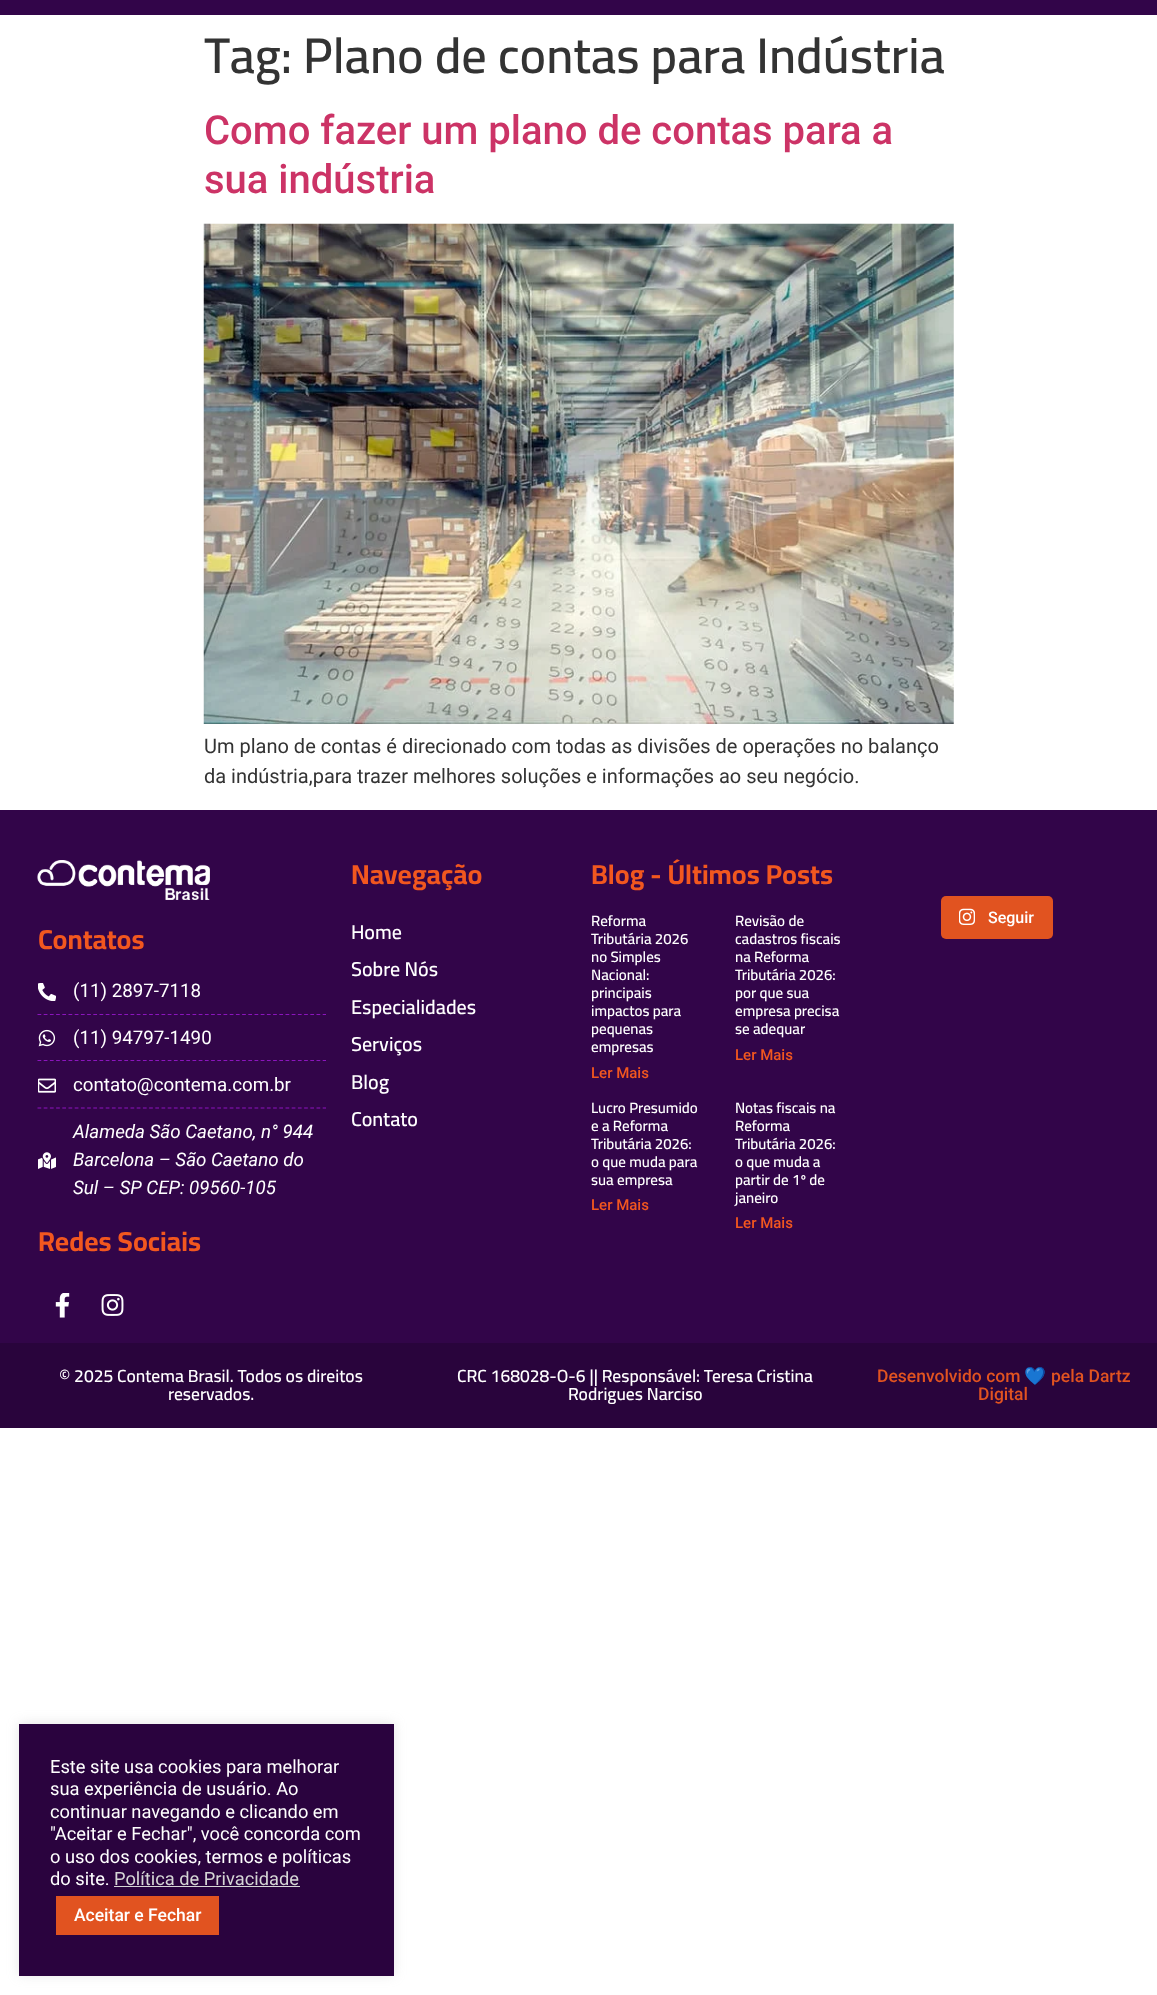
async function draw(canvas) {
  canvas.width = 1157
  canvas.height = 1995
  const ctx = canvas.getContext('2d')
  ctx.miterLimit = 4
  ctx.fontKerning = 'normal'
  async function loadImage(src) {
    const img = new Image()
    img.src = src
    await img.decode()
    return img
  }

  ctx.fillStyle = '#fff'
  ctx.fillRect(0, 0, 1157, 1995)
  ctx.fillStyle = '#320549'
  ctx.fillRect(0, 0, 1157, 15)
  ctx.font = '600 50px Cairo'
  ctx.fillStyle = '#333'
  ctx.fillText('Tag: Plano de contas para Indústria', 204, 73)
  ctx.font = '500 40px Roboto'
  ctx.fillStyle = '#c36'
  ctx.fillText('Como fazer um plano de contas para a', 204, 144)
  ctx.fillText('sua indústria', 204, 193)
  ctx.drawImage(await loadImage('image0.png'), 203, 223, 751, 501)
  ctx.font = '20px Roboto'
  ctx.fillStyle = '#333'
  ctx.fillText('Um plano de contas é direcionado com todas as divisões de operações no balanço', 204, 753)
  ctx.fillText('da indústria,para trazer melhores soluções e informações ao seu negócio.', 204, 783)
  ctx.fillStyle = '#320549'
  ctx.fillRect(0, 810, 1157, 533)
  ctx.font = 'bold 27.5px Cairo'
  ctx.fillStyle = '#f2571f'
  ctx.fillText('Navegação', 351, 884)
  ctx.font = '600 20px Cairo'
  ctx.fillStyle = '#fff'
  ctx.fillText('Home', 351, 939)
  ctx.fillText('Sobre Nós', 351, 976)
  ctx.fillText('Especialidades', 351, 1014)
  ctx.fillText('Serviços', 351, 1051)
  ctx.fillText('Blog', 351, 1089)
  ctx.fillText('Contato', 351, 1126)
  ctx.font = 'bold 27.5px Cairo'
  ctx.fillStyle = '#f2571f'
  ctx.fillText('Blog - Últimos Posts', 591, 884)
  ctx.font = '600 15px Cairo'
  ctx.fillStyle = '#fff'
  ctx.fillText('Reforma', 591, 926)
  ctx.fillText('Tributária 2026', 591, 944)
  ctx.fillText('no Simples', 591, 962)
  ctx.fillText('Nacional:', 591, 980)
  ctx.fillText('principais', 591, 998)
  ctx.fillText('impactos para', 591, 1016)
  ctx.fillText('pequenas', 591, 1034)
  ctx.fillText('empresas', 591, 1052)
  ctx.font = '500 15px Roboto'
  ctx.fillStyle = '#f2571f'
  ctx.fillText('Ler Mais', 591, 1078)
  ctx.font = '600 15px Cairo'
  ctx.fillStyle = '#fff'
  ctx.fillText('Revisão de', 735, 926)
  ctx.fillText('cadastros fiscais', 735, 944)
  ctx.fillText('na Reforma', 735, 962)
  ctx.fillText('Tributária 2026:', 735, 980)
  ctx.fillText('por que sua', 735, 998)
  ctx.fillText('empresa precisa', 735, 1016)
  ctx.fillText('se adequar', 735, 1034)
  ctx.font = '500 15px Roboto'
  ctx.fillStyle = '#f2571f'
  ctx.fillText('Ler Mais', 735, 1060)
  ctx.font = '600 15px Cairo'
  ctx.fillStyle = '#fff'
  ctx.fillText('Lucro Presumido', 591, 1113)
  ctx.fillText('e a Reforma', 591, 1131)
  ctx.fillText('Tributária 2026:', 591, 1149)
  ctx.fillText('o que muda para', 591, 1167)
  ctx.fillText('sua empresa', 591, 1185)
  ctx.font = '500 15px Roboto'
  ctx.fillStyle = '#f2571f'
  ctx.fillText('Ler Mais', 591, 1210)
  ctx.font = '600 15px Cairo'
  ctx.fillStyle = '#fff'
  ctx.fillText('Notas fiscais na', 735, 1113)
  ctx.fillText('Reforma', 735, 1131)
  ctx.fillText('Tributária 2026:', 735, 1149)
  ctx.fillText('o que muda a', 735, 1167)
  ctx.fillText('partir de 1º de', 735, 1185)
  ctx.fillText('janeiro', 735, 1203)
  ctx.font = '500 15px Roboto'
  ctx.fillStyle = '#f2571f'
  ctx.fillText('Ler Mais', 735, 1228)
  ctx.fillStyle = '#e15320'
  ctx.beginPath()
  ctx.roundRect(941, 896, 112, 43, 5)
  ctx.fill()
  ctx.drawImage(await loadImage('image1.png'), 959, 908, 16, 17)
  ctx.font = '500 16px Roboto'
  ctx.fillStyle = '#fff'
  ctx.fillText('Seguir', 988, 923)
  ctx.drawImage(await loadImage('image2.png'), 37, 860, 173, 40)
  ctx.font = 'bold 27.5px Cairo'
  ctx.fillStyle = '#f2571f'
  ctx.fillText('Contatos', 38, 949)
  ctx.drawImage(await loadImage('image3.png'), 38, 983, 18, 18)
  ctx.font = '18.75px Roboto'
  ctx.fillStyle = '#fff'
  ctx.fillText('(11) 2897-7118', 73, 997)
  ctx.beginPath()
  ctx.moveTo(37.5, 1014.5)
  ctx.lineTo(326, 1014.5)
  ctx.strokeStyle = '#8b15bd'
  ctx.lineWidth = 1.2
  ctx.setLineDash([3.75, 2.45])
  ctx.stroke()
  ctx.drawImage(await loadImage('image4.png'), 38, 1029, 18, 18)
  ctx.fillText('(11) 94797-1490', 73, 1044)
  ctx.beginPath()
  ctx.moveTo(37.5, 1060.5)
  ctx.lineTo(326, 1060.5)
  ctx.stroke()
  ctx.drawImage(await loadImage('image5.png'), 38, 1078, 18, 15)
  ctx.fillText('contato@contema.com.br', 73, 1091)
  ctx.beginPath()
  ctx.moveTo(37.5, 1108)
  ctx.lineTo(326, 1108)
  ctx.stroke()
  ctx.drawImage(await loadImage('image6.png'), 38, 1152, 18, 17)
  ctx.font = 'italic 18.75px Roboto'
  ctx.fillText('Alameda São Caetano, n° 944', 73, 1138)
  ctx.fillText('Barcelona – São Caetano do', 73, 1166)
  ctx.fillText('Sul – SP CEP: 09560-105', 73, 1194)
  ctx.font = 'bold 27.5px Cairo'
  ctx.fillStyle = '#f2571f'
  ctx.fillText('Redes Sociais', 38, 1251)
  ctx.drawImage(await loadImage('image7.png'), 55, 1293, 15, 25)
  ctx.drawImage(await loadImage('image8.png'), 101, 1294, 23, 22)
  ctx.fillStyle = '#29043c'
  ctx.fillRect(0, 1343, 1157, 85)
  ctx.font = '600 17.5px Cairo'
  ctx.fillStyle = '#fff'
  ctx.fillText('© 2025 Contema Brasil. Todos os direitos', 59, 1382)
  ctx.fillText('reservados.', 168, 1400)
  ctx.fillText('CRC 168028-O-6 || Responsável: Teresa Cristina', 457, 1382)
  ctx.fillText('Rodrigues Narciso', 568, 1400)
  ctx.font = '500 17.5px Roboto'
  ctx.fillStyle = '#e15320'
  ctx.fillText('Desenvolvido com', 877, 1382)
  ctx.font = '17.5px Noto Color Emoji'
  ctx.fillText('💙', 1024, 1382)
  ctx.font = '500 17.5px Roboto'
  ctx.fillText('pela Dartz', 1051, 1382)
  ctx.fillText('Digital', 978, 1400)
  ctx.fillStyle = '#acabab4d'
  ctx.filter = 'blur(6px)'
  ctx.beginPath()
  ctx.rect(19, 1723, 375, 252)
  ctx.fill()
  ctx.filter = 'none'
  ctx.fillStyle = '#2a033e'
  ctx.fillRect(19, 1724, 375, 252)
  ctx.font = '18.3px Roboto'
  ctx.fillStyle = '#fff'
  ctx.fillText('Este site usa cookies para melhorar', 50, 1773)
  ctx.fillText('sua experiência de usuário. Ao', 50, 1795)
  ctx.fillText('continuar navegando e clicando em', 50, 1818)
  ctx.fillText('"Aceitar e Fechar", você concorda com', 50, 1840)
  ctx.fillText('o uso dos cookies, termos e políticas', 50, 1863)
  ctx.fillText('do site.', 50, 1885)
  ctx.fillStyle = '#d6d6d6'
  ctx.fillText('Política de Privacidade', 114, 1885)
  ctx.fillRect(114, 1886, 186, 1)
  ctx.fillStyle = '#e15320'
  ctx.fillRect(56, 1896, 163, 39)
  ctx.font = '500 17.5px Roboto'
  ctx.fillStyle = '#fff'
  ctx.fillText('Aceitar e Fechar', 74, 1921)
}

draw(document.querySelector('canvas'))
